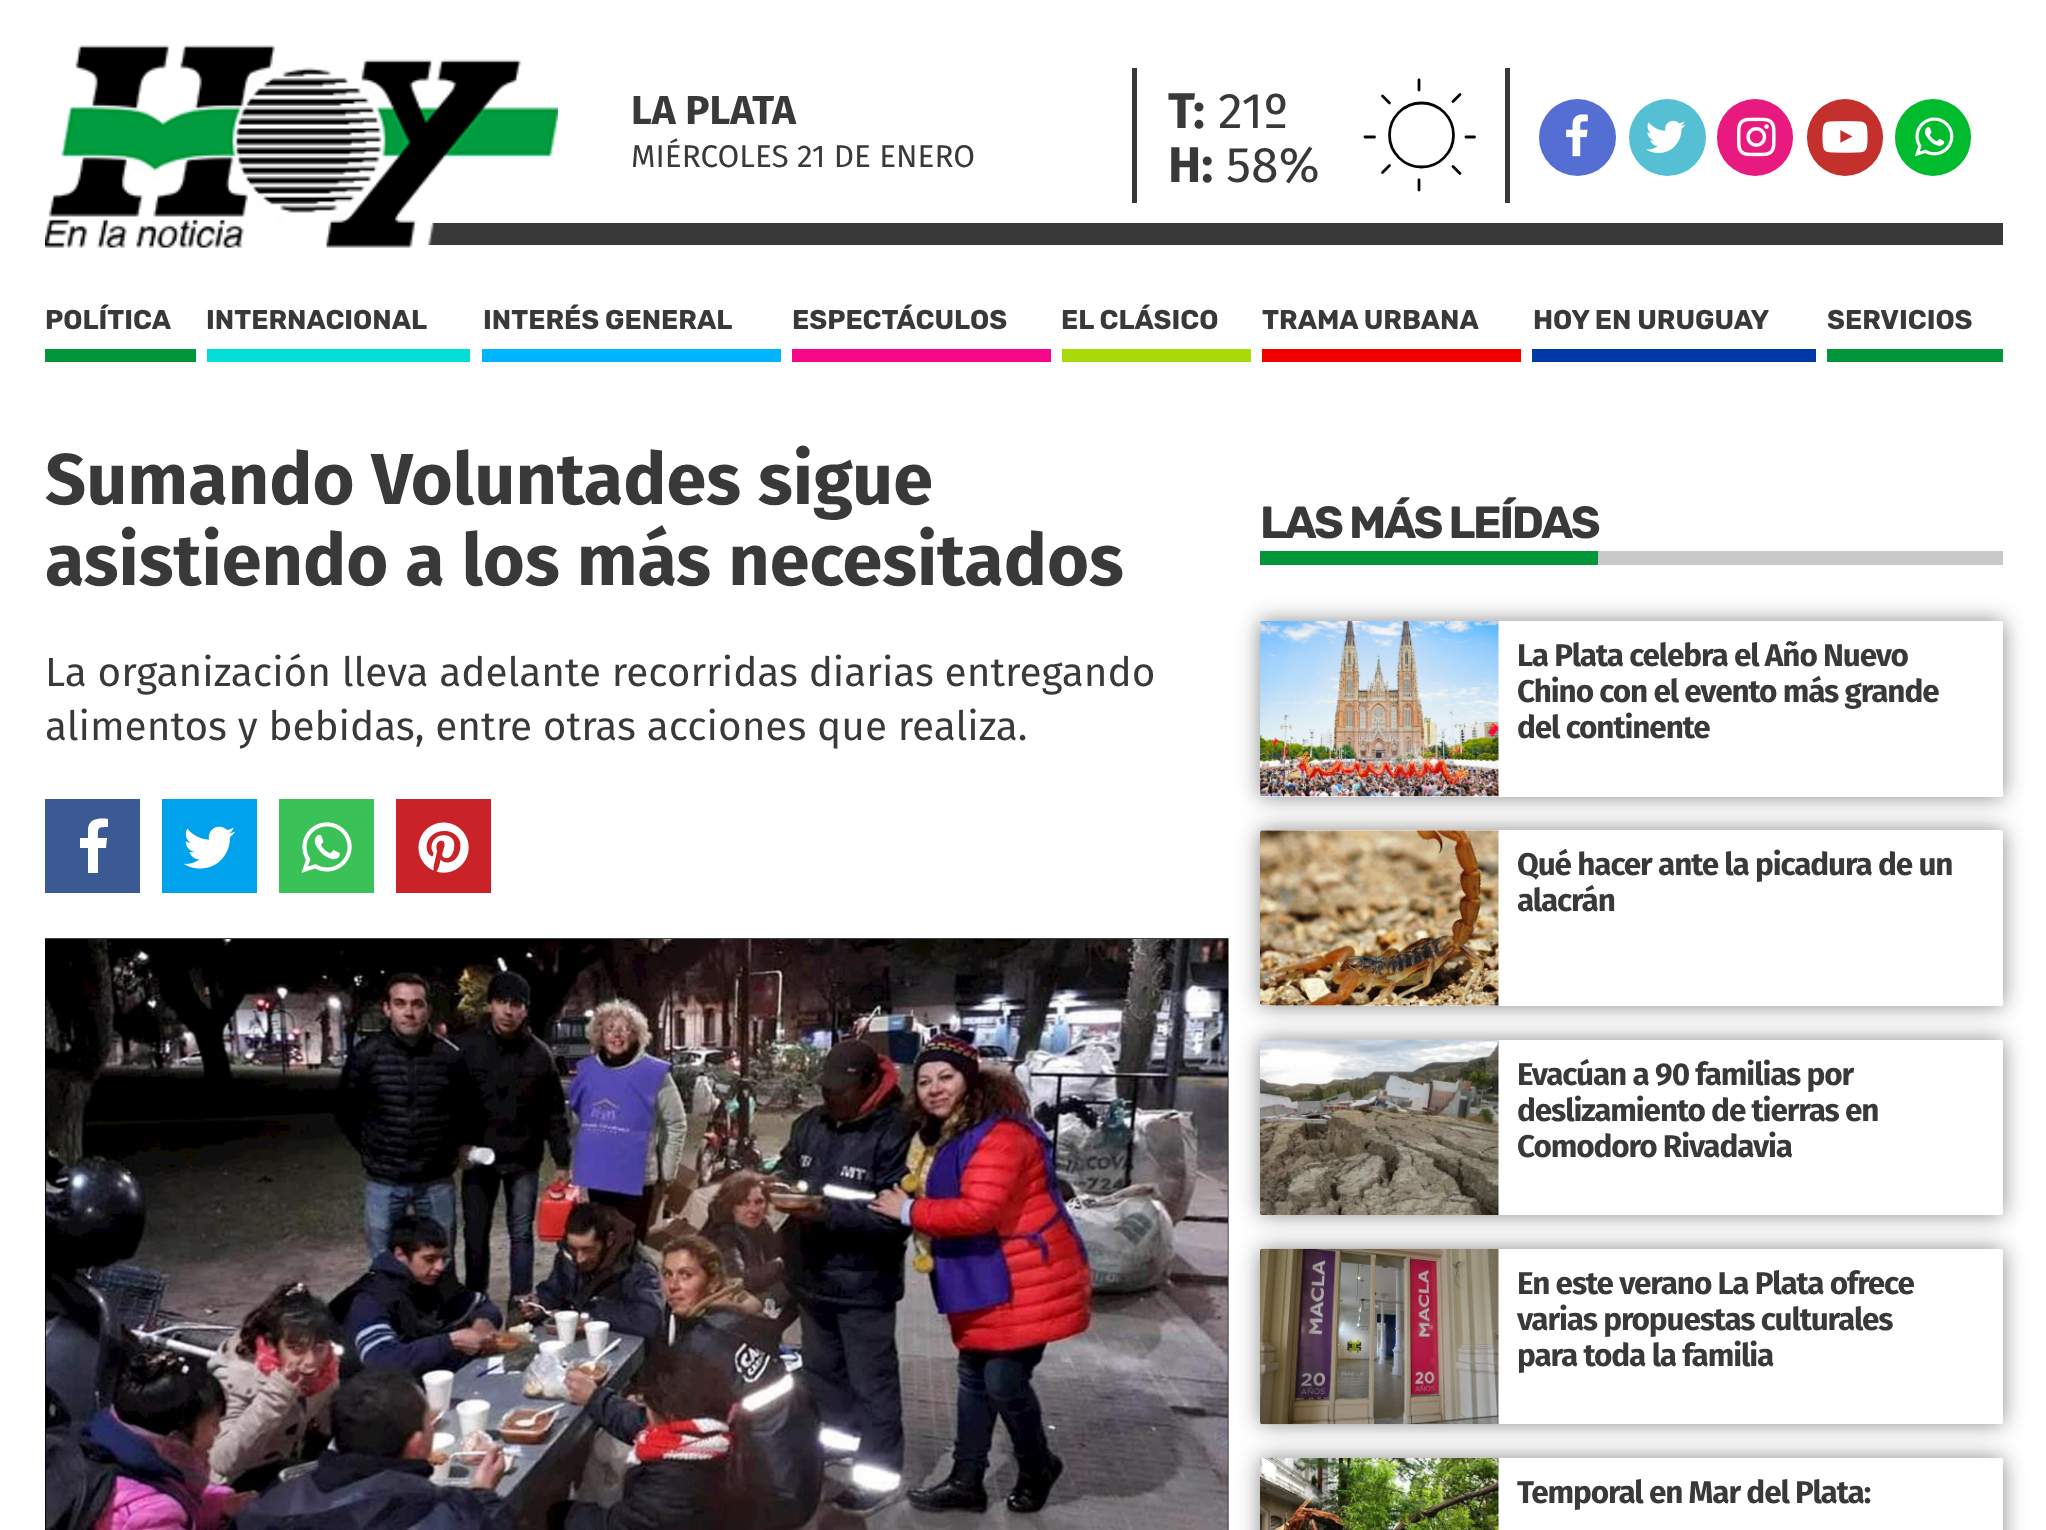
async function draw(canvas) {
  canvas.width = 2046
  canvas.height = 1530
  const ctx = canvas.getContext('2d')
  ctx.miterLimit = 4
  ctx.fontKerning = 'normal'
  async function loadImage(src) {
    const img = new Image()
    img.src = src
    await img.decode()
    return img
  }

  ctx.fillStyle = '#fff'
  ctx.fillRect(0, 0, 2046, 1530)
  ctx.fillStyle = '#393939'
  ctx.fillRect(428, 223, 1575, 22)
  ctx.drawImage(await loadImage('image0.png'), 45, 45, 513, 203)
  ctx.fillRect(1132, 68, 5, 135)
  ctx.font = 'bold 40.5px Fira Sans'
  ctx.fillText('LA PLATA', 631, 124)
  ctx.font = '31.5px Fira Sans'
  ctx.fillText('MIÉRCOLES 21 DE ENERO', 631, 167)
  ctx.beginPath()
  ctx.arc(1421.5, 135, 32, 0, 2 * Math.PI)
  ctx.strokeStyle = '#050505'
  ctx.lineWidth = 2.8
  ctx.stroke()
  ctx.beginPath()
  ctx.moveTo(1419, 180)
  ctx.lineTo(1419, 190)
  ctx.lineCap = 'round'
  ctx.lineJoin = 'round'
  ctx.stroke()
  ctx.beginPath()
  ctx.moveTo(1419, 80)
  ctx.lineTo(1419, 90)
  ctx.moveTo(1466, 137)
  ctx.lineTo(1474.5, 137)
  ctx.stroke()
  ctx.beginPath()
  ctx.moveTo(1365, 137)
  ctx.lineTo(1374.5, 137)
  ctx.stroke()
  ctx.beginPath()
  ctx.moveTo(1453, 166.5)
  ctx.lineTo(1460, 173.5)
  ctx.stroke()
  ctx.beginPath()
  ctx.moveTo(1382.5, 96)
  ctx.lineTo(1389.5, 103)
  ctx.stroke()
  ctx.beginPath()
  ctx.moveTo(1453, 101.5)
  ctx.lineTo(1460, 94.5)
  ctx.stroke()
  ctx.beginPath()
  ctx.moveTo(1382.5, 172.5)
  ctx.lineTo(1389.5, 165.5)
  ctx.stroke()
  ctx.font = 'bold 50px Fira Sans'
  ctx.fillText('T:', 1168, 128)
  ctx.font = '50px Fira Sans'
  ctx.fillText('21º', 1218, 128)
  ctx.font = 'bold 50px Fira Sans'
  ctx.fillText('H:', 1168, 182)
  ctx.font = '50px Fira Sans'
  ctx.fillText('58%', 1226, 182)
  ctx.fillRect(1505, 68, 5, 135)
  ctx.fillStyle = '#556ed3'
  ctx.beginPath()
  ctx.arc(1577.5, 137.5, 38.5, 0, 2 * Math.PI)
  ctx.fill()
  ctx.drawImage(await loadImage('image1.png'), 1566, 114, 22, 43)
  ctx.fillStyle = '#55c0d3'
  ctx.beginPath()
  ctx.arc(1667.5, 137.5, 38.5, 0, 2 * Math.PI)
  ctx.fill()
  ctx.drawImage(await loadImage('image2.png'), 1646, 120, 40, 33)
  ctx.fillStyle = '#e8197f'
  ctx.beginPath()
  ctx.roundRect(1717, 99, 76, 77, 38)
  ctx.fill()
  ctx.drawImage(await loadImage('image3.png'), 1737, 117, 39, 40)
  ctx.fillStyle = '#c4302b'
  ctx.beginPath()
  ctx.roundRect(1807, 99, 76, 77, 38)
  ctx.fill()
  ctx.drawImage(await loadImage('image4.png'), 1822, 121, 46, 32)
  ctx.fillStyle = '#00bb2d'
  ctx.beginPath()
  ctx.roundRect(1895, 99, 76, 77, 38)
  ctx.fill()
  ctx.drawImage(await loadImage('image5.png'), 1914, 117, 40, 40)
  ctx.fillStyle = '#009639'
  ctx.fillRect(45, 349, 151, 13)
  ctx.font = 'bold 27px Rubik'
  ctx.fillStyle = '#393939'
  ctx.fillText('POLÍTICA', 45, 329)
  ctx.fillStyle = '#02ddd5'
  ctx.fillRect(207, 349, 263, 13)
  ctx.fillStyle = '#393939'
  ctx.fillText('INTERNACIONAL', 206, 329)
  ctx.fillStyle = '#00b4ff'
  ctx.fillRect(482, 349, 299, 13)
  ctx.fillStyle = '#393939'
  ctx.fillText('INTERÉS GENERAL', 483, 329)
  ctx.fillStyle = '#f60689'
  ctx.fillRect(792, 349, 259, 13)
  ctx.fillStyle = '#393939'
  ctx.fillText('ESPECTÁCULOS', 792, 329)
  ctx.fillStyle = '#aad908'
  ctx.fillRect(1062, 349, 189, 13)
  ctx.fillStyle = '#393939'
  ctx.fillText('EL CLÁSICO', 1061, 329)
  ctx.fillStyle = '#f20000'
  ctx.fillRect(1262, 349, 259, 13)
  ctx.fillStyle = '#393939'
  ctx.fillText('TRAMA URBANA', 1262, 329)
  ctx.fillStyle = '#0038a8'
  ctx.fillRect(1532, 349, 284, 13)
  ctx.fillStyle = '#393939'
  ctx.fillText('HOY EN URUGUAY', 1533, 329)
  ctx.fillStyle = '#009639'
  ctx.fillRect(1827, 349, 176, 13)
  ctx.fillStyle = '#393939'
  ctx.fillText('SERVICIOS', 1827, 329)
  ctx.font = 'bold 72px Fira Sans'
  ctx.fillText('Sumando Voluntades sigue', 45, 504)
  ctx.fillText('asistiendo a los más necesitados', 45, 585)
  ctx.font = '40.5px Fira Sans'
  ctx.fillText('La organización lleva adelante recorridas diarias entregando', 45, 686)
  ctx.fillText('alimentos y bebidas, entre otras acciones que realiza.', 45, 740)
  ctx.fillStyle = '#3b5a94'
  ctx.fillRect(45, 799, 95, 94)
  ctx.fillStyle = '#fff'
  ctx.beginPath()
  ctx.moveTo(108, 819)
  ctx.lineTo(108, 827)
  ctx.bezierCurveTo(97, 827, 98, 828, 98, 838)
  ctx.lineTo(107, 838)
  ctx.lineTo(106, 848)
  ctx.lineTo(98, 848)
  ctx.lineTo(98, 873)
  ctx.lineTo(88, 873)
  ctx.lineTo(88, 848)
  ctx.lineTo(80, 848)
  ctx.lineTo(80, 838)
  ctx.lineTo(88, 838)
  ctx.lineTo(88, 828)
  ctx.bezierCurveTo(90, 818, 100, 818, 108, 819)
  ctx.closePath()
  ctx.fill()
  ctx.fillStyle = '#00a2ec'
  ctx.fillRect(162, 799, 95, 94)
  ctx.drawImage(await loadImage('image6.png'), 184, 826, 51, 43)
  ctx.fillStyle = '#3ac259'
  ctx.fillRect(279, 799, 95, 94)
  ctx.drawImage(await loadImage('image7.png'), 301, 822, 51, 51)
  ctx.fillStyle = '#c92228'
  ctx.fillRect(396, 799, 95, 94)
  ctx.drawImage(await loadImage('image8.png'), 418, 822, 51, 51)
  ctx.save()
  ctx.beginPath()
  ctx.moveTo(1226, 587)
  ctx.lineTo(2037, 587)
  ctx.lineTo(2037, 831)
  ctx.lineTo(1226, 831)
  ctx.closePath()
  ctx.moveTo(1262, 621)
  ctx.lineTo(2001, 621)
  ctx.bezierCurveTo(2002, 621, 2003, 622, 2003, 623)
  ctx.lineTo(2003, 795)
  ctx.bezierCurveTo(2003, 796, 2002, 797, 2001, 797)
  ctx.lineTo(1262, 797)
  ctx.bezierCurveTo(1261, 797, 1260, 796, 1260, 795)
  ctx.lineTo(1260, 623)
  ctx.bezierCurveTo(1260, 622, 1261, 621, 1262, 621)
  ctx.closePath()
  ctx.clip('evenodd')
  ctx.fillStyle = '#888'
  ctx.filter = 'blur(11px)'
  ctx.beginPath()
  ctx.roundRect(1260, 621, 743, 176, 2)
  ctx.fill()
  ctx.filter = 'none'
  ctx.restore()
  ctx.drawImage(await loadImage('image10.png'), 1260, 621, 239, 176)
  ctx.save()
  ctx.beginPath()
  ctx.moveTo(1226, 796)
  ctx.lineTo(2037, 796)
  ctx.lineTo(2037, 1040)
  ctx.lineTo(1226, 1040)
  ctx.closePath()
  ctx.moveTo(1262, 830)
  ctx.lineTo(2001, 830)
  ctx.bezierCurveTo(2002, 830, 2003, 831, 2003, 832)
  ctx.lineTo(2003, 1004)
  ctx.bezierCurveTo(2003, 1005, 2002, 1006, 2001, 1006)
  ctx.lineTo(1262, 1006)
  ctx.bezierCurveTo(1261, 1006, 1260, 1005, 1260, 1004)
  ctx.lineTo(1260, 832)
  ctx.bezierCurveTo(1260, 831, 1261, 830, 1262, 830)
  ctx.closePath()
  ctx.clip('evenodd')
  ctx.fillStyle = '#888'
  ctx.filter = 'blur(11px)'
  ctx.beginPath()
  ctx.roundRect(1260, 830, 743, 176, 2)
  ctx.fill()
  ctx.filter = 'none'
  ctx.restore()
  ctx.save()
  ctx.beginPath()
  ctx.moveTo(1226, 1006)
  ctx.lineTo(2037, 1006)
  ctx.lineTo(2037, 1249)
  ctx.lineTo(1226, 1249)
  ctx.closePath()
  ctx.moveTo(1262, 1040)
  ctx.lineTo(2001, 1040)
  ctx.bezierCurveTo(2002, 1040, 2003, 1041, 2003, 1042)
  ctx.lineTo(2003, 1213)
  ctx.bezierCurveTo(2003, 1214, 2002, 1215, 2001, 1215)
  ctx.lineTo(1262, 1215)
  ctx.bezierCurveTo(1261, 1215, 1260, 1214, 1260, 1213)
  ctx.lineTo(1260, 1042)
  ctx.bezierCurveTo(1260, 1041, 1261, 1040, 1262, 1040)
  ctx.closePath()
  ctx.clip('evenodd')
  ctx.fillStyle = '#888'
  ctx.filter = 'blur(11px)'
  ctx.beginPath()
  ctx.roundRect(1260, 1040, 743, 175, 2)
  ctx.fill()
  ctx.filter = 'none'
  ctx.restore()
  ctx.save()
  ctx.beginPath()
  ctx.moveTo(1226, 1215)
  ctx.lineTo(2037, 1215)
  ctx.lineTo(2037, 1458)
  ctx.lineTo(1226, 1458)
  ctx.closePath()
  ctx.moveTo(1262, 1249)
  ctx.lineTo(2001, 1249)
  ctx.bezierCurveTo(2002, 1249, 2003, 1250, 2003, 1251)
  ctx.lineTo(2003, 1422)
  ctx.bezierCurveTo(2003, 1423, 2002, 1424, 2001, 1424)
  ctx.lineTo(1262, 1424)
  ctx.bezierCurveTo(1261, 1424, 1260, 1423, 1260, 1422)
  ctx.lineTo(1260, 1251)
  ctx.bezierCurveTo(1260, 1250, 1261, 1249, 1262, 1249)
  ctx.closePath()
  ctx.clip('evenodd')
  ctx.fillStyle = '#888'
  ctx.filter = 'blur(11px)'
  ctx.beginPath()
  ctx.roundRect(1260, 1249, 743, 175, 2)
  ctx.fill()
  ctx.filter = 'none'
  ctx.restore()
  ctx.drawImage(await loadImage('image13.png'), 1260, 1248, 239, 177)
  ctx.save()
  ctx.beginPath()
  ctx.moveTo(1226, 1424)
  ctx.lineTo(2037, 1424)
  ctx.lineTo(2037, 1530)
  ctx.lineTo(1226, 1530)
  ctx.closePath()
  ctx.moveTo(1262, 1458)
  ctx.lineTo(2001, 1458)
  ctx.bezierCurveTo(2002, 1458, 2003, 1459, 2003, 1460)
  ctx.lineTo(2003, 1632)
  ctx.bezierCurveTo(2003, 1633, 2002, 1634, 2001, 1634)
  ctx.lineTo(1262, 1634)
  ctx.bezierCurveTo(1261, 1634, 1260, 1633, 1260, 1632)
  ctx.lineTo(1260, 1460)
  ctx.bezierCurveTo(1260, 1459, 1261, 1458, 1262, 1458)
  ctx.closePath()
  ctx.clip('evenodd')
  ctx.fillStyle = '#888'
  ctx.filter = 'blur(11px)'
  ctx.beginPath()
  ctx.roundRect(1260, 1458, 743, 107, 2)
  ctx.fill()
  ctx.filter = 'none'
  ctx.restore()
  ctx.drawImage(await loadImage('image9.png'), 45, 938, 1184, 592)
  ctx.fillStyle = '#c9c9c9'
  ctx.fillRect(1598, 551, 405, 14)
  ctx.fillStyle = '#009639'
  ctx.fillRect(1260, 551, 338, 14)
  ctx.letterSpacing = '-2.25px'
  ctx.font = 'bold 45px Rubik'
  ctx.fillStyle = '#393939'
  ctx.fillText('LAS MÁS LEÍDAS', 1260, 538)
  ctx.letterSpacing = '-1.1px'
  ctx.font = 'bold 31.5px Fira Sans'
  ctx.fillText('La Plata celebra el Año Nuevo', 1517, 666)
  ctx.fillText('Chino con el evento más grande', 1517, 702)
  ctx.fillText('del continente', 1517, 738)
  ctx.drawImage(await loadImage('image11.png'), 1260, 830, 239, 176)
  ctx.fillText('Qué hacer ante la picadura de un', 1517, 875)
  ctx.fillText('alacrán', 1517, 911)
  ctx.drawImage(await loadImage('image12.png'), 1260, 1039, 239, 176)
  ctx.fillText('Evacúan a 90 familias por', 1517, 1085)
  ctx.fillText('deslizamiento de tierras en', 1517, 1121)
  ctx.fillText('Comodoro Rivadavia', 1517, 1157)
  ctx.fillText('En este verano La Plata ofrece', 1517, 1294)
  ctx.fillText('varias propuestas culturales', 1517, 1330)
  ctx.fillText('para toda la familia', 1517, 1366)
  ctx.drawImage(await loadImage('image14.png'), 1260, 1458, 239, 72)
  ctx.fillText('Temporal en Mar del Plata:', 1517, 1503)
}

draw(document.querySelector('canvas'))
